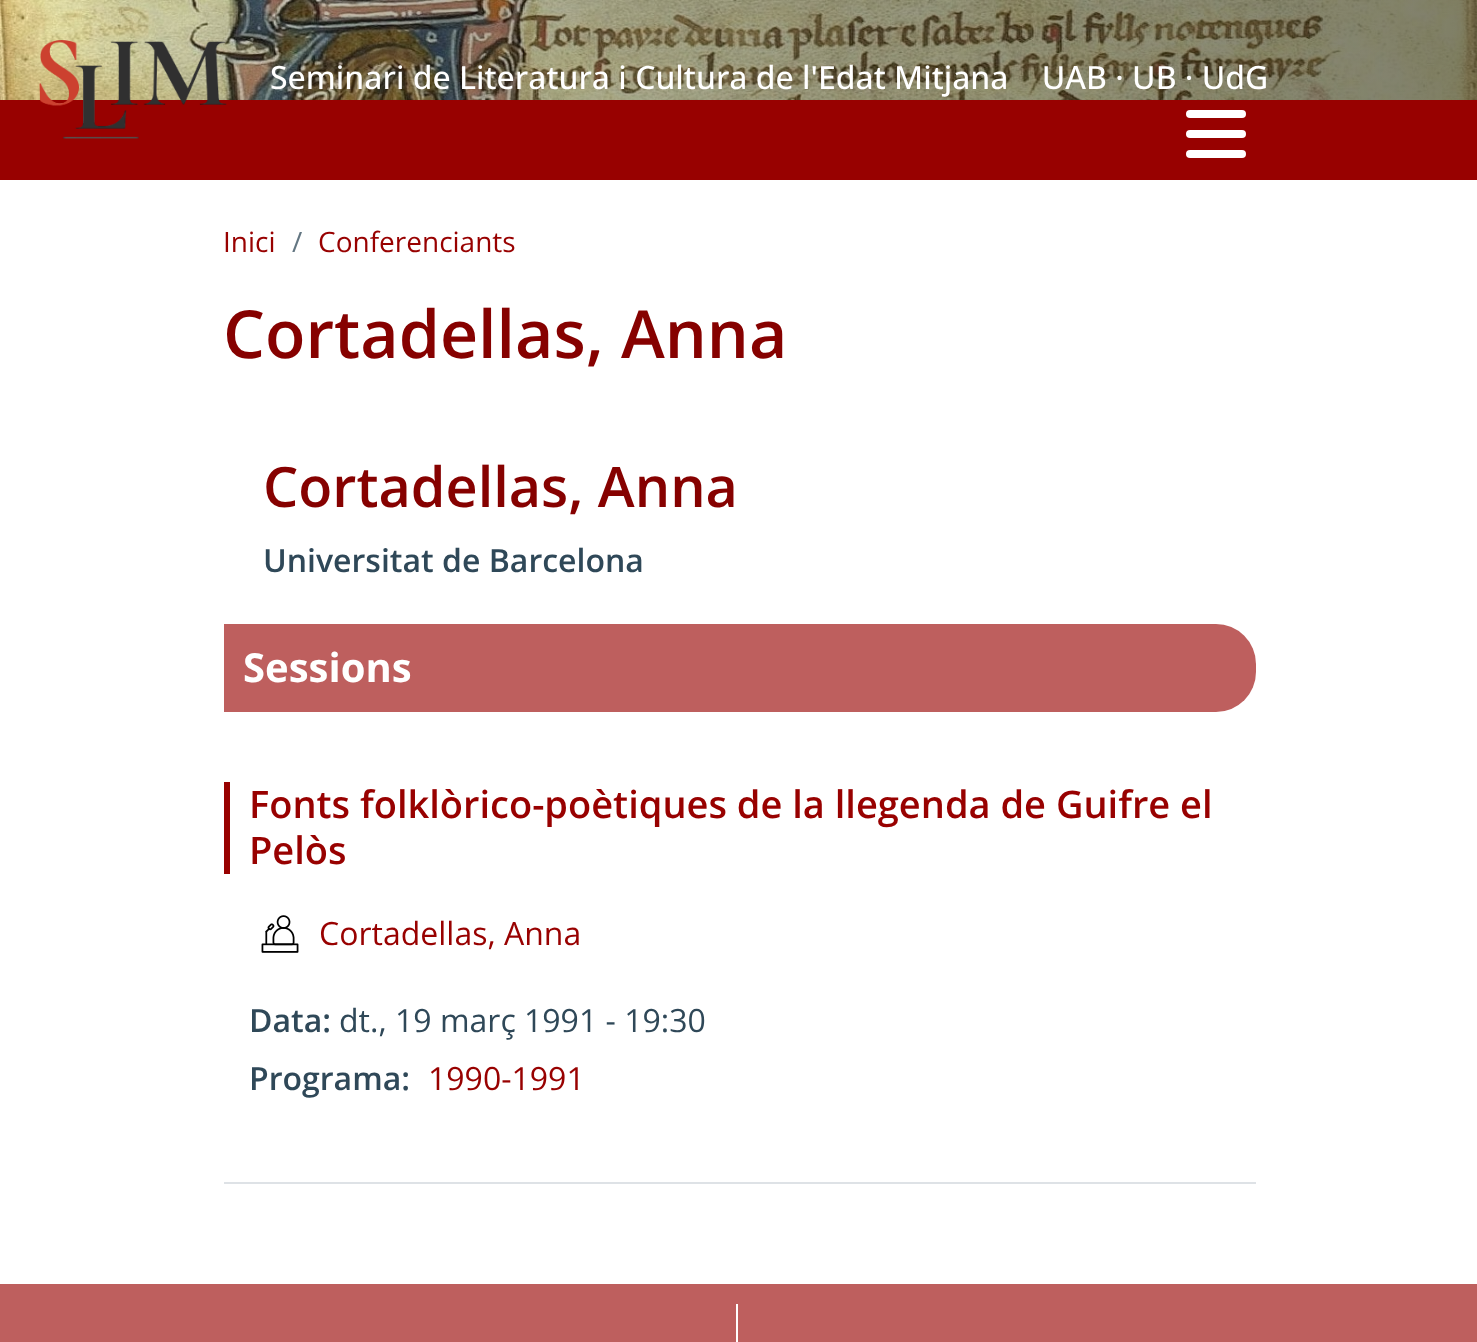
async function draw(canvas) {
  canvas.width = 1477
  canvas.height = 1342
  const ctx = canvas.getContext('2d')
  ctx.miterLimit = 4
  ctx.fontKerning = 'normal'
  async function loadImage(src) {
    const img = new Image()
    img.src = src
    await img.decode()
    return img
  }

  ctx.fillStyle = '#fff'
  ctx.fillRect(0, 0, 1477, 1342)
  ctx.drawImage(await loadImage('image0.png'), 0, 0, 1477, 100)
  ctx.fillStyle = '#980100'
  ctx.fillRect(0, 100, 1477, 80)
  ctx.drawImage(await loadImage('image1.png'), 39, 40, 188, 99)
  ctx.font = '500 32px Open Sans'
  ctx.fillStyle = '#fff'
  ctx.fillText('Seminari de Literatura i Cultura de l\'Edat Mitjana    UAB · UB · UdG', 270, 89)
  ctx.beginPath()
  ctx.roundRect(1186, 150, 60, 8, 4)
  ctx.fill()
  ctx.beginPath()
  ctx.roundRect(1186, 110, 60, 8, 4)
  ctx.fill()
  ctx.beginPath()
  ctx.roundRect(1186, 130, 60, 8, 4)
  ctx.fill()
  ctx.font = '28px Open Sans'
  ctx.fillStyle = '#980100'
  ctx.fillText('Inici', 223, 252)
  ctx.fillStyle = '#637682'
  ctx.fillText('/', 292, 252)
  ctx.fillStyle = '#980100'
  ctx.fillText('Conferenciants', 318, 252)
  ctx.font = '600 66.25px Open Sans'
  ctx.fillStyle = '#860100'
  ctx.fillText('Cortadellas, Anna', 223, 358)
  ctx.font = '600 55.75px Open Sans'
  ctx.fillText('Cortadellas, Anna', 263, 507)
  ctx.font = '600 32px Open Sans'
  ctx.fillStyle = '#2f4858'
  ctx.fillText('Universitat de Barcelona', 263, 572)
  ctx.fillStyle = '#be5f5e'
  ctx.beginPath()
  ctx.roundRect(224, 624, 1032, 88, [0, 40, 40, 0])
  ctx.fill()
  ctx.font = 'bold 40px Open Sans'
  ctx.fillStyle = '#fff'
  ctx.fillText('Sessions', 243, 682)
  ctx.fillStyle = '#dee2e6'
  ctx.fillRect(224, 1182, 1032, 2)
  ctx.fillStyle = '#980100'
  ctx.fillRect(224, 782, 6, 92)
  ctx.font = '600 38px Open Sans'
  ctx.fillText('Fonts folklòrico-poètiques de la llegenda de Guifre el', 249, 818)
  ctx.fillText('Pelòs', 249, 864)
  ctx.drawImage(await loadImage('image2.png'), 261, 915, 38, 38)
  ctx.font = '32px Open Sans'
  ctx.fillText('Cortadellas, Anna', 319, 945)
  ctx.font = '600 32px Open Sans'
  ctx.fillStyle = '#2f4858'
  ctx.fillText('Data:', 249, 1032)
  ctx.font = '32px Open Sans'
  ctx.fillText('dt., 19 març 1991 - 19:30', 339, 1032)
  ctx.font = '600 32px Open Sans'
  ctx.fillText('Programa:', 249, 1090)
  ctx.font = '32px Open Sans'
  ctx.fillStyle = '#980100'
  ctx.fillText('1990-1991', 428, 1090)
  ctx.fillStyle = '#be5f5e'
  ctx.fillRect(0, 1284, 1477, 58)
  ctx.fillStyle = '#fff'
  ctx.fillRect(736, 1304, 2, 38)
}

draw(document.querySelector('canvas'))
